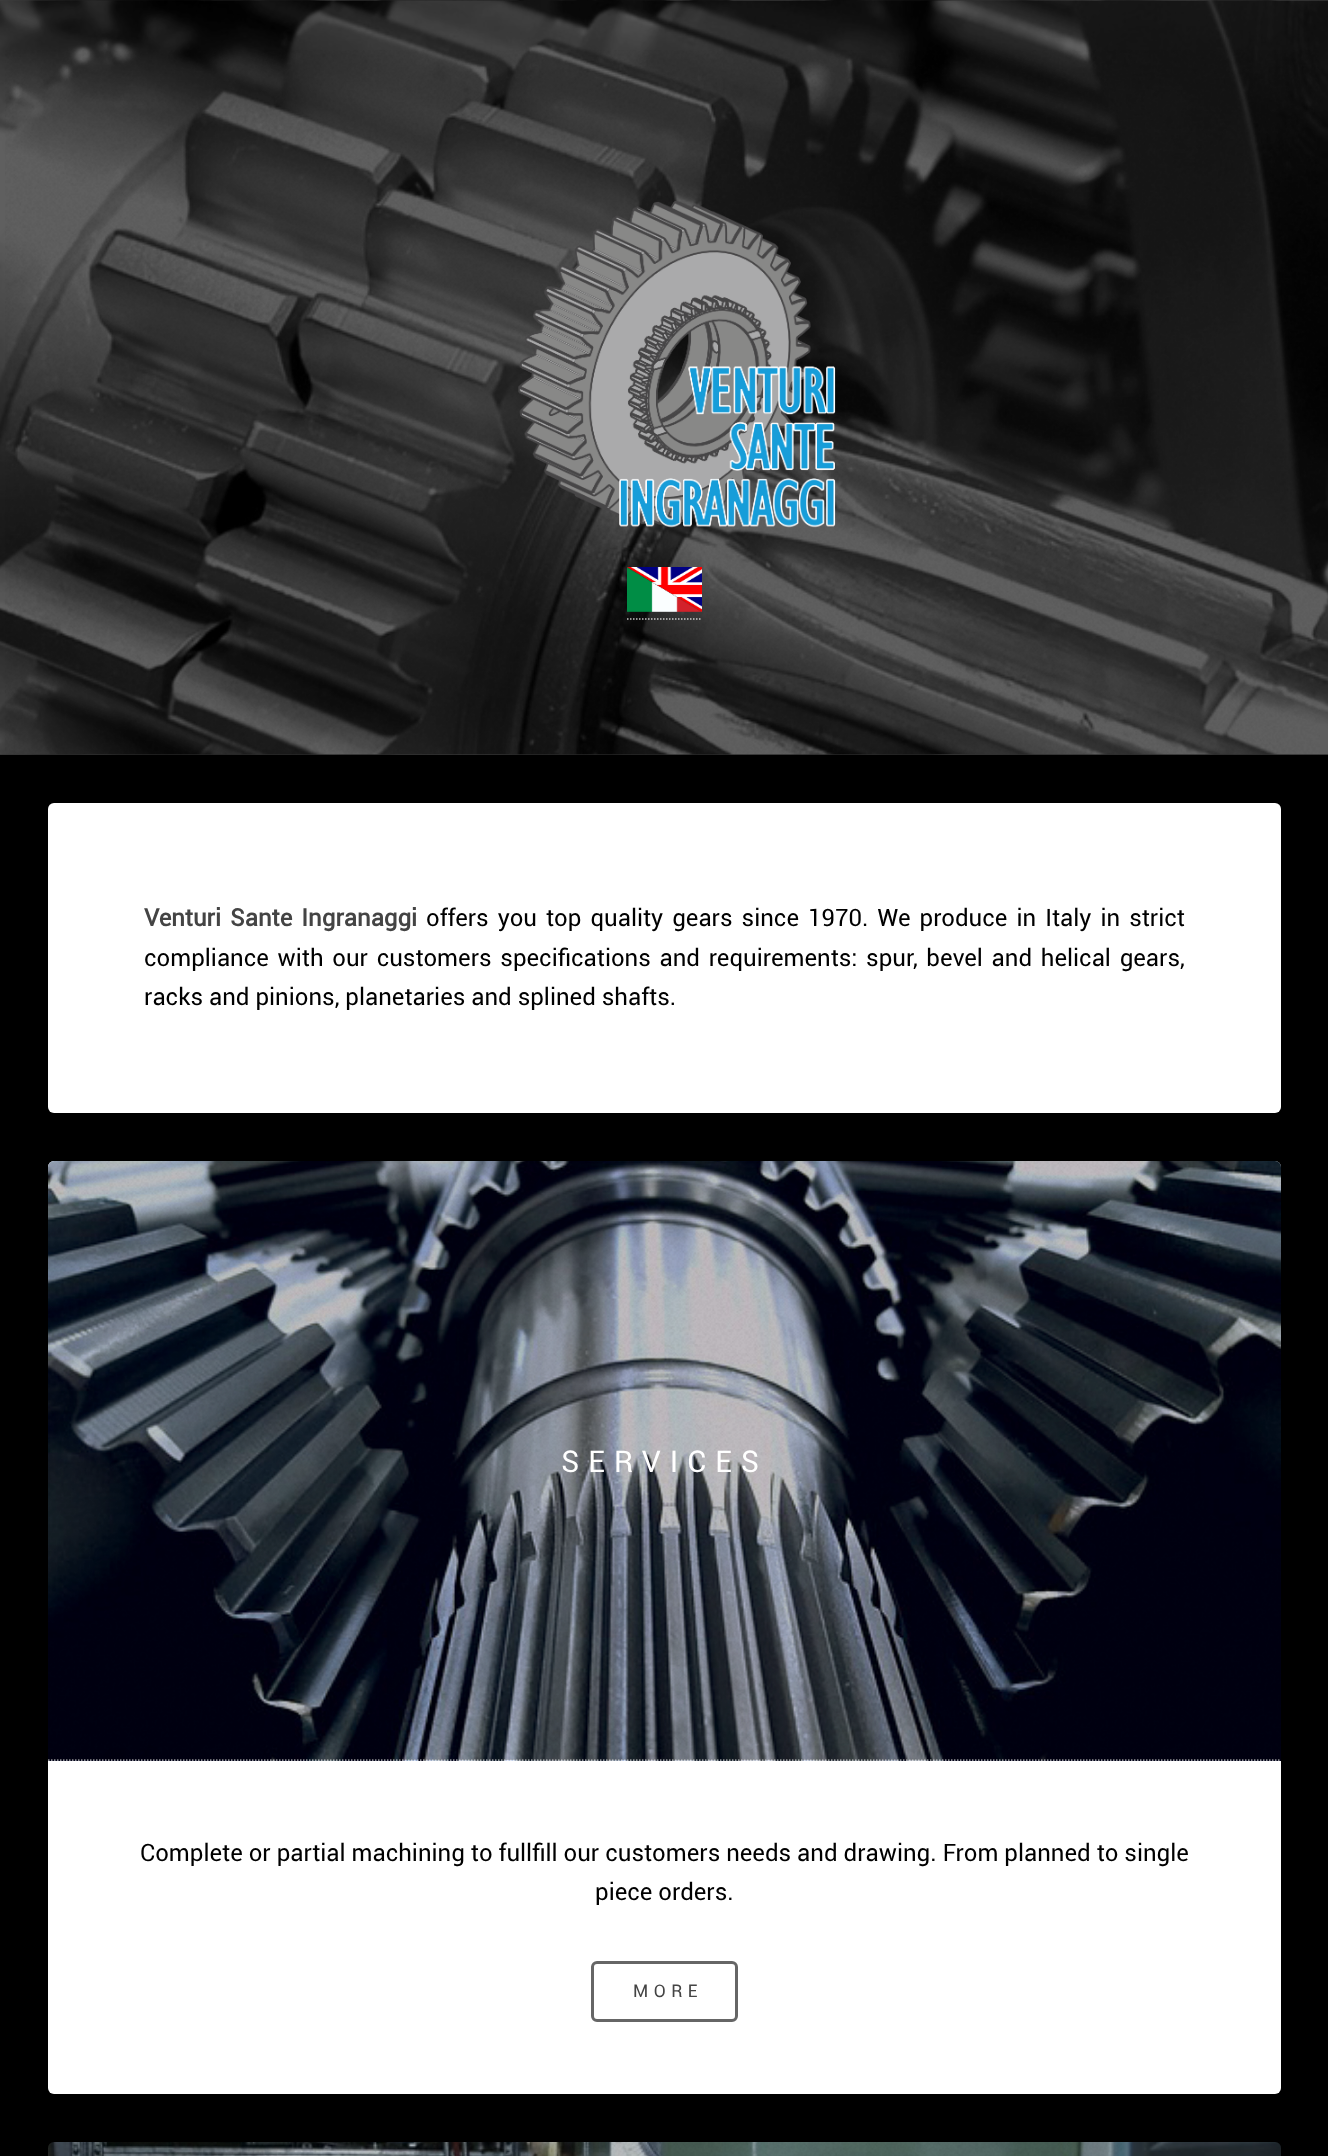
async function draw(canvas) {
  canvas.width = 1328
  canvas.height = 2156
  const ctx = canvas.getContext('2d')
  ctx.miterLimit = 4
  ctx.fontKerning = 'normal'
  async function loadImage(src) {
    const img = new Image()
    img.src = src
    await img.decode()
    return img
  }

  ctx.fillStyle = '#000'
  ctx.fillRect(0, 0, 1328, 2156)
  ctx.fillStyle = '#333'
  ctx.fillRect(0, 754, 1328, 1)
  ctx.drawImage(await loadImage('image0.png'), 0, 0, 1328, 755)
  ctx.drawImage(await loadImage('image1.png'), 5, 50, 1315, 704)
  ctx.drawImage(await loadImage('image2.png'), 518, 201, 318, 327)
  ctx.drawImage(await loadImage('image3.png'), 627, 567, 75, 45)
  ctx.beginPath()
  ctx.moveTo(627, 619)
  ctx.lineTo(702, 619)
  ctx.strokeStyle = '#ffffffbf'
  ctx.lineWidth = 1.5
  ctx.setLineDash([1.5, 1.5])
  ctx.stroke()
  ctx.fillStyle = '#fff'
  ctx.beginPath()
  ctx.roundRect(48, 803, 1233, 310, 6)
  ctx.fill()
  ctx.wordSpacing = '3.1px'
  ctx.font = 'bold 24px Roboto'
  ctx.fillStyle = '#444'
  ctx.fillText('Venturi Sante Ingranaggi', 144, 926)
  ctx.font = '24px Roboto'
  ctx.fillStyle = '#000'
  ctx.fillText('offers you top quality gears since 1970. We produce in Italy in strict', 426, 926)
  ctx.wordSpacing = '2.75px'
  ctx.fillText('compliance with our customers specifications and requirements: spur, bevel and helical gears,', 144, 966)
  ctx.wordSpacing = '0px'
  ctx.fillText('racks and pinions, planetaries and splined shafts.', 144, 1005)
  ctx.fillStyle = '#fff'
  ctx.beginPath()
  ctx.roundRect(48, 1161, 1233, 933, 6)
  ctx.fill()
  ctx.drawImage(await loadImage('image4.png'), 48, 1161, 1233, 600)
  ctx.beginPath()
  ctx.moveTo(48, 1760)
  ctx.lineTo(1281, 1760)
  ctx.stroke()
  ctx.fillStyle = '#00000040'
  ctx.beginPath()
  ctx.roundRect(48, 1161, 1233, 599, [6, 6, 0, 0])
  ctx.fill()
  ctx.drawImage(await loadImage('image5.png'), 48, 1161, 1233, 598)
  ctx.letterSpacing = '9px'
  ctx.font = '30px Roboto'
  ctx.fillStyle = '#fff'
  ctx.fillText('SERVICES', 561, 1472)
  ctx.letterSpacing = '0px'
  ctx.font = '24px Roboto'
  ctx.fillStyle = '#000'
  ctx.fillText('Complete or partial machining to fullfill our customers needs and drawing. From planned to single', 140, 1861)
  ctx.fillText('piece orders.', 595, 1900)
  ctx.beginPath()
  ctx.roundRect(592.5, 1962.5, 144, 58, 4.5)
  ctx.strokeStyle = '#666'
  ctx.lineWidth = 3
  ctx.setLineDash([])
  ctx.stroke()
  ctx.letterSpacing = '5.5px'
  ctx.font = '17.5px Roboto'
  ctx.fillStyle = '#444'
  ctx.fillText('MORE', 633, 1997)
  ctx.drawImage(await loadImage('image6.png'), 48, 2142, 1233, 14)
  ctx.fillStyle = '#00000040'
  ctx.beginPath()
  ctx.moveTo(54, 2142)
  ctx.lineTo(1275, 2142)
  ctx.bezierCurveTo(1278.5, 2142, 1281, 2144.5, 1281, 2148)
  ctx.lineTo(1281, 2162)
  ctx.lineTo(48, 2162)
  ctx.lineTo(48, 2148)
  ctx.bezierCurveTo(48, 2144.5, 50.5, 2142, 54, 2142)
  ctx.closePath()
  ctx.fill()
  ctx.drawImage(await loadImage('image7.png'), 104, 2142, 1018, 14)
}

draw(document.querySelector('canvas'))
